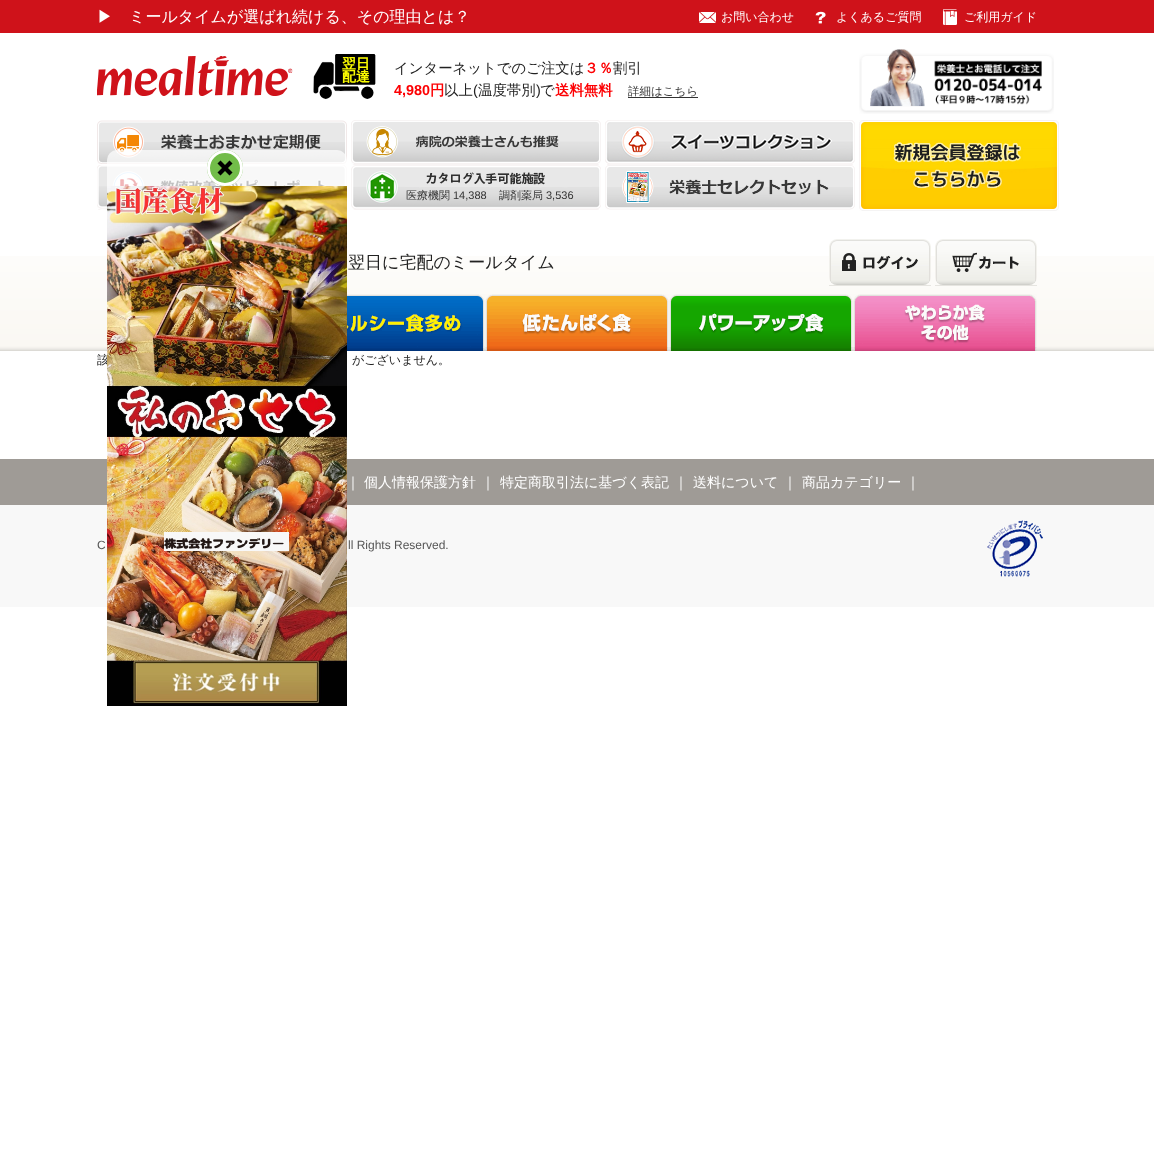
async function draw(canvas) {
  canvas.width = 1154
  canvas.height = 1150
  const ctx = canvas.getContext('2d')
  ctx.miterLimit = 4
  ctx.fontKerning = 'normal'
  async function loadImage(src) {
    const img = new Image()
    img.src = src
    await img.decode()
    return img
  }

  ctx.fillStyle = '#fff'
  ctx.fillRect(0, 0, 1154, 1150)
  ctx.drawImage(await loadImage('image0.png'), 0, 256, 1154, 95)
  ctx.fillStyle = '#cf121a'
  ctx.fillRect(0, 0, 1154, 33)
  ctx.font = '500 16px WenQuanYi Zen Hei'
  ctx.fillStyle = '#fff'
  ctx.fillText('▶', 97, 22)
  ctx.fillText('ミールタイムが選ばれ続ける、その理由とは？', 129, 22)
  ctx.drawImage(await loadImage('image1.png'), 699, 12, 17, 11)
  ctx.font = '500 12px WenQuanYi Zen Hei'
  ctx.fillText('お問い合わせ', 721, 21)
  ctx.drawImage(await loadImage('image2.png'), 815, 11, 11, 13)
  ctx.fillText('よくあるご質問', 836, 21)
  ctx.drawImage(await loadImage('image3.png'), 943, 9, 14, 16)
  ctx.fillText('ご利用ガイド', 964, 21)
  ctx.drawImage(await loadImage('image4.png'), 97, 56, 196, 40)
  ctx.drawImage(await loadImage('image5.png'), 313, 54, 63, 45)
  ctx.font = '500 14.4px WenQuanYi Zen Hei'
  ctx.fillStyle = '#222'
  ctx.fillText('インターネットでのご注文は', 394, 73)
  ctx.font = 'bold 14.4px WenQuanYi Zen Hei'
  ctx.fillStyle = '#fd0003'
  ctx.fillText('３％', 584, 73)
  ctx.font = '500 14.4px WenQuanYi Zen Hei'
  ctx.fillStyle = '#222'
  ctx.fillText('割引', 613, 73)
  ctx.font = 'bold 14.4px Liberation Sans'
  ctx.fillStyle = '#fd0003'
  ctx.fillText('4,980', 394, 95)
  ctx.font = 'bold 14.4px WenQuanYi Zen Hei'
  ctx.fillText('円', 430, 95)
  ctx.font = '500 14.4px WenQuanYi Zen Hei'
  ctx.fillStyle = '#222'
  ctx.fillText('以上', 444, 95)
  ctx.font = '14.4px Liberation Sans'
  ctx.fillText('(', 473, 95)
  ctx.font = '500 14.4px WenQuanYi Zen Hei'
  ctx.fillText('温度帯別', 478, 95)
  ctx.font = '14.4px Liberation Sans'
  ctx.fillText(')', 536, 95)
  ctx.font = '500 14.4px WenQuanYi Zen Hei'
  ctx.fillText('で', 540, 95)
  ctx.font = 'bold 14.4px WenQuanYi Zen Hei'
  ctx.fillStyle = '#fd0003'
  ctx.fillText('送料無料', 555, 95)
  ctx.fillStyle = '#333'
  ctx.fillRect(628, 97, 70, 1)
  ctx.font = '500 11.5px WenQuanYi Zen Hei'
  ctx.fillText('詳細はこちら', 628, 95)
  ctx.drawImage(await loadImage('image6.png'), 859, 49, 195, 65)
  ctx.drawImage(await loadImage('image7.png'), 97, 120, 250, 44)
  ctx.drawImage(await loadImage('image8.png'), 351, 120, 250, 45)
  ctx.drawImage(await loadImage('image9.png'), 605, 120, 250, 45)
  ctx.drawImage(await loadImage('image10.png'), 97, 165, 250, 45)
  ctx.drawImage(await loadImage('image11.png'), 351, 165, 250, 45)
  ctx.font = '500 11px WenQuanYi Zen Hei'
  ctx.fillText('医療機関', 406, 199)
  ctx.font = '11px Liberation Sans'
  ctx.fillText('14,388', 453, 199)
  ctx.font = '500 11px WenQuanYi Zen Hei'
  ctx.fillText('調剤薬局', 499, 199)
  ctx.font = '11px Liberation Sans'
  ctx.fillText('3,536', 546, 199)
  ctx.drawImage(await loadImage('image12.png'), 605, 165, 250, 45)
  ctx.drawImage(await loadImage('image13.png'), 859, 120, 200, 91)
  ctx.font = '500 17px WenQuanYi Zen Hei'
  ctx.fillStyle = '#222'
  ctx.fillText('翌日に宅配のミールタイム', 348, 268)
  ctx.fillStyle = '#e6e5e0'
  ctx.fillRect(829, 285, 102, 1)
  ctx.drawImage(await loadImage('image14.png'), 829, 239, 102, 46)
  ctx.fillRect(935, 285, 102, 1)
  ctx.drawImage(await loadImage('image15.png'), 935, 239, 102, 46)
  ctx.drawImage(await loadImage('image16.png'), 347, 294, 138, 57)
  ctx.drawImage(await loadImage('image17.png'), 485, 294, 184, 57)
  ctx.drawImage(await loadImage('image18.png'), 669, 294, 184, 57)
  ctx.drawImage(await loadImage('image19.png'), 853, 294, 184, 57)
  ctx.font = '500 12px WenQuanYi Zen Hei'
  ctx.fillStyle = '#222'
  ctx.fillText('該', 97, 364)
  ctx.fillStyle = '#ffffffb3'
  ctx.beginPath()
  ctx.roundRect(107, 150, 240, 36, [10, 10, 0, 0])
  ctx.fill()
  ctx.fillStyle = '#72bd49'
  ctx.beginPath()
  ctx.arc(225, 168, 18, 0, 2 * Math.PI)
  ctx.fill()
  ctx.drawImage(await loadImage('image20.png'), 217, 160, 16, 16)
  ctx.beginPath()
  ctx.arc(225, 168, 16.5, 0, 2 * Math.PI)
  ctx.strokeStyle = '#fff'
  ctx.lineWidth = 3
  ctx.stroke()
  ctx.fillStyle = '#f8f8f8'
  ctx.fillRect(0, 505, 1154, 102)
  ctx.fillStyle = '#9f9b96'
  ctx.fillRect(0, 459, 1154, 46)
  ctx.drawImage(await loadImage('image21.png'), 107, 186, 240, 520)
  ctx.fillStyle = '#222'
  ctx.fillText('がございません。', 352, 364)
  ctx.font = '500 14px WenQuanYi Zen Hei'
  ctx.fillStyle = '#fff'
  ctx.fillText('｜', 346, 487)
  ctx.fillText('個人情報保護方針', 364, 487)
  ctx.fillText('｜', 481, 487)
  ctx.fillText('特定商取引法に基づく表記', 500, 487)
  ctx.fillText('｜', 674, 487)
  ctx.fillText('送料について', 693, 487)
  ctx.fillText('｜', 783, 487)
  ctx.fillText('商品カテゴリー', 802, 487)
  ctx.fillText('｜', 906, 487)
  ctx.font = '12px Liberation Sans'
  ctx.fillStyle = '#555'
  ctx.fillText('C', 97, 549)
  ctx.drawImage(await loadImage('image22.png'), 164, 532, 125, 19)
  ctx.fillText('ll Rights Reserved.', 348, 549)
  ctx.drawImage(await loadImage('image23.png'), 987, 520, 56, 57)
}

draw(document.querySelector('canvas'))
